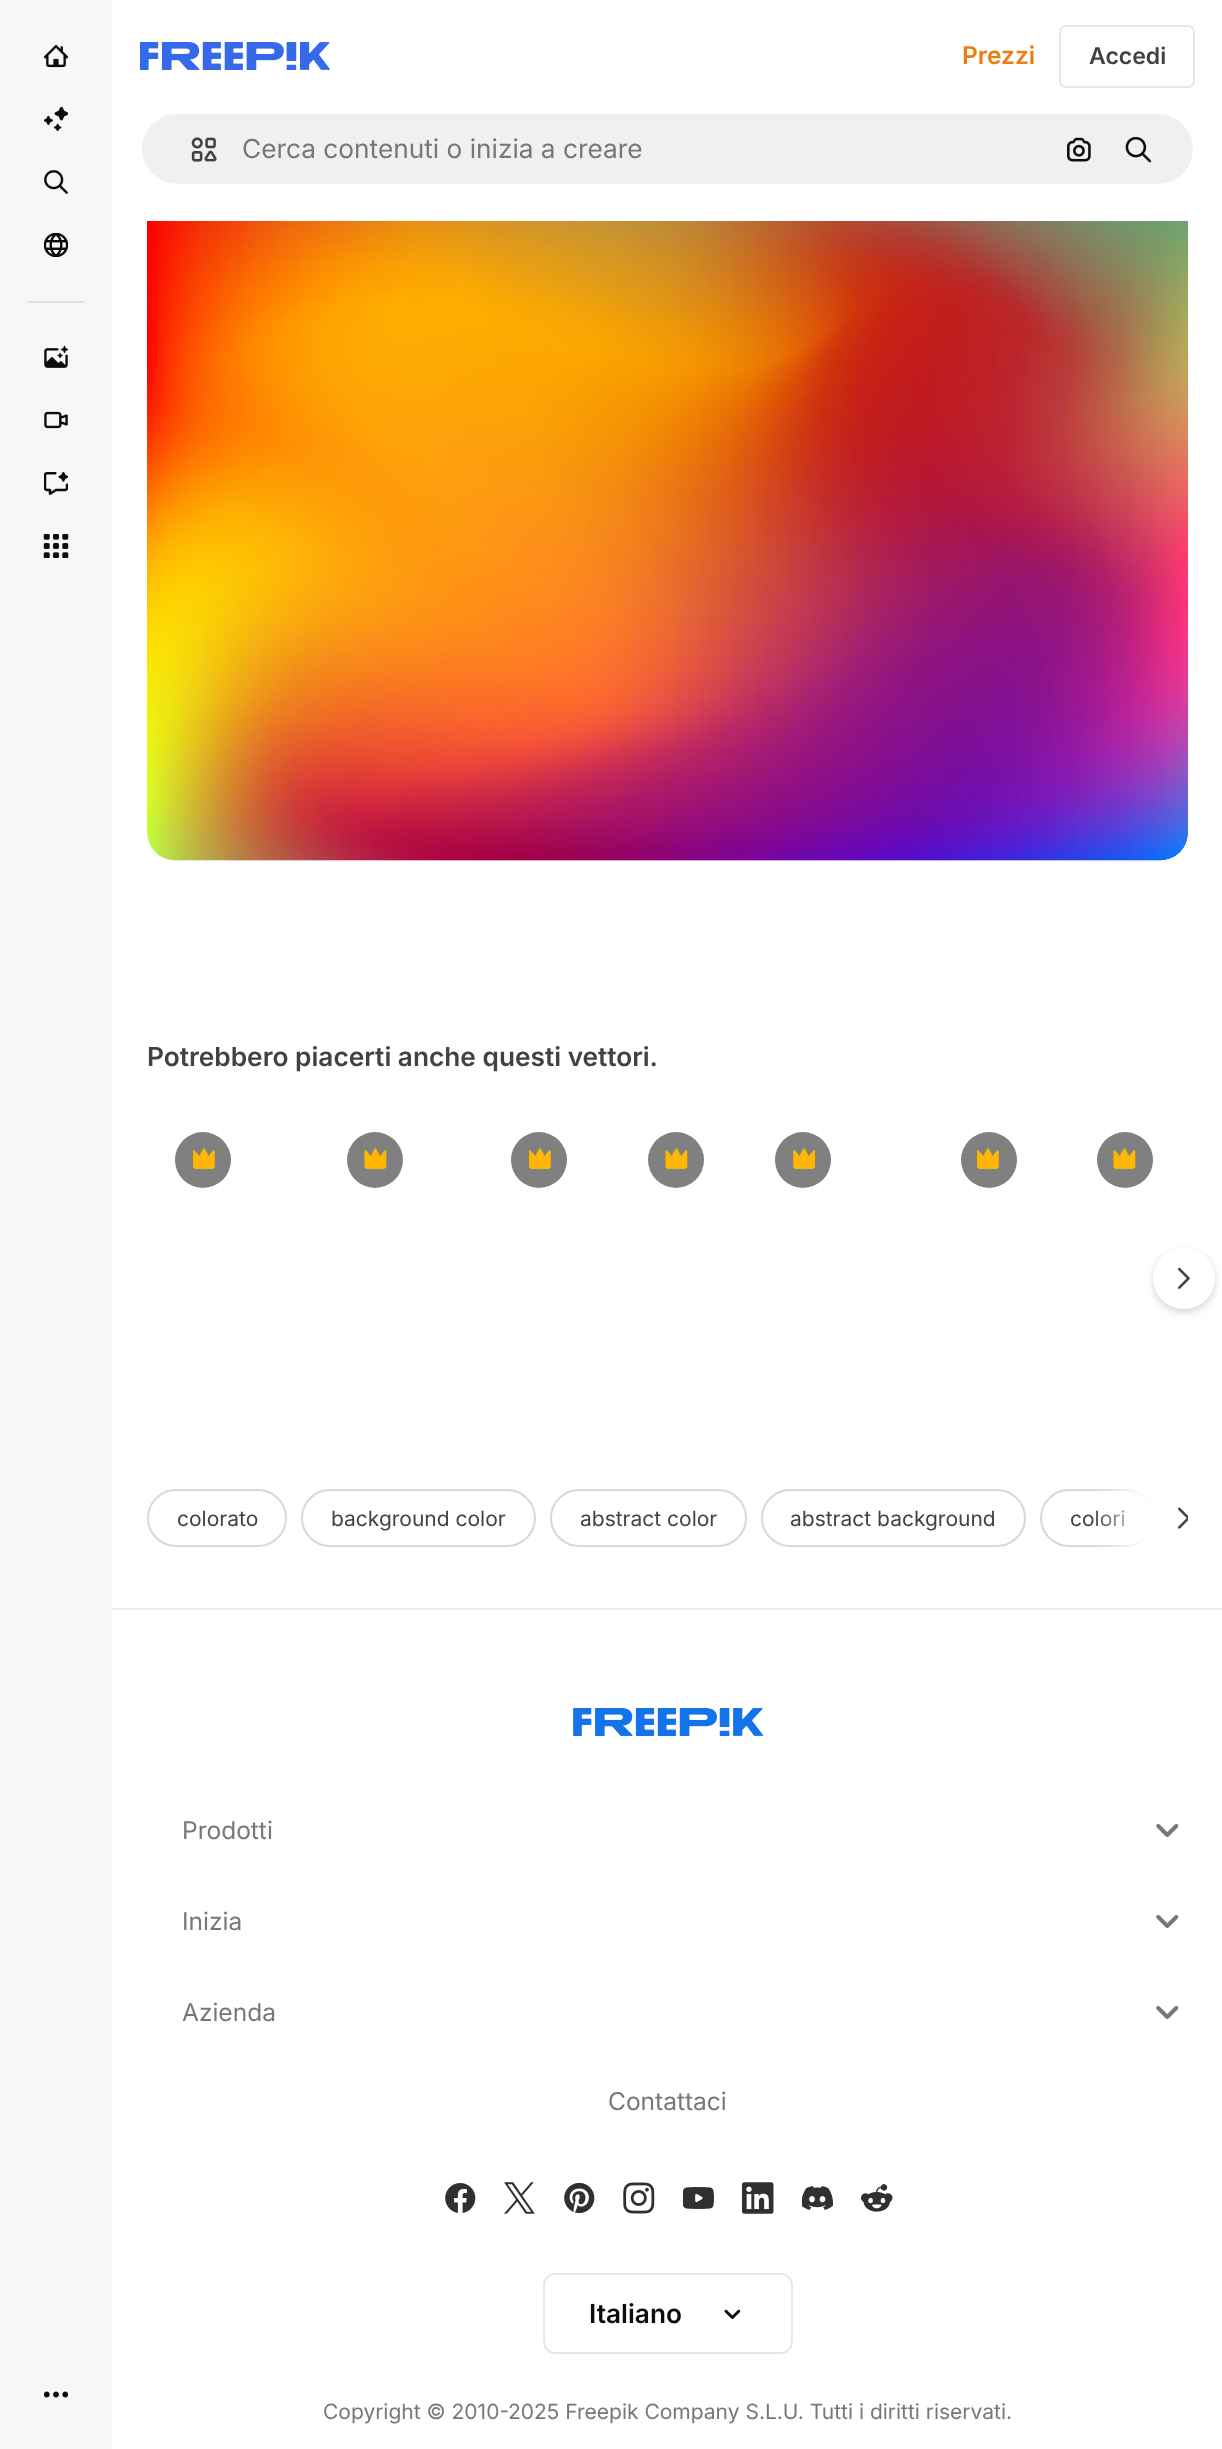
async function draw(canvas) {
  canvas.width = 1222
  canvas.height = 2449
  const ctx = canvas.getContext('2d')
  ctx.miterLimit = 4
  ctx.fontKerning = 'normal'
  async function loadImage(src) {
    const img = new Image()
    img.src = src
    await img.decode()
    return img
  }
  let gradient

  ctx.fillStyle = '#fff'
  ctx.fillRect(0, 0, 1222, 2449)
  ctx.fillStyle = '#f7f7f7'
  ctx.fillRect(0, 0, 112, 2449)
  ctx.drawImage(await loadImage('image0.png'), 44, 45, 24, 23)
  ctx.drawImage(await loadImage('image1.png'), 44, 107, 24, 24)
  ctx.drawImage(await loadImage('image2.png'), 44, 170, 24, 24)
  ctx.drawImage(await loadImage('image3.png'), 44, 233, 24, 24)
  ctx.fillStyle = '#e0e0e0'
  ctx.fillRect(28, 301, 56, 2)
  ctx.drawImage(await loadImage('image4.png'), 44, 345, 24, 23)
  ctx.drawImage(await loadImage('image5.png'), 44, 411, 24, 18)
  ctx.drawImage(await loadImage('image6.png'), 44, 472, 24, 23)
  ctx.drawImage(await loadImage('image7.png'), 43, 534, 26, 24)
  ctx.drawImage(await loadImage('image8.png'), 44, 2391, 24, 7)
  ctx.drawImage(await loadImage('image9.png'), 140, 42, 190, 28)
  ctx.font = '600 24.5px Inter'
  ctx.fillStyle = '#ea7e11'
  ctx.fillText('Prezzi', 962, 64)
  ctx.beginPath()
  ctx.roundRect(1060, 26, 134, 61, 6)
  ctx.strokeStyle = '#e7e7e7'
  ctx.lineWidth = 2
  ctx.stroke()
  ctx.font = '600 23px Inter'
  ctx.fillStyle = '#424242'
  ctx.fillText('Accedi', 1089, 64)
  ctx.fillStyle = '#f0f0f0'
  ctx.beginPath()
  ctx.roundRect(141, 113, 1053, 72, 36)
  ctx.fill()
  ctx.strokeStyle = '#fff'
  ctx.stroke()
  ctx.drawImage(await loadImage('image10.png'), 191, 137, 26, 25)
  ctx.font = '26.25px Inter'
  ctx.fillStyle = '#777'
  ctx.fillText('Cerca contenuti o inizia a creare', 242, 158)
  ctx.drawImage(await loadImage('image11.png'), 1067, 137, 24, 25)
  ctx.drawImage(await loadImage('image12.png'), 1125, 137, 27, 26)
  ctx.drawImage(await loadImage('image13.png'), 147, 221, 1041, 640)
  ctx.font = '600 26.25px Inter'
  ctx.fillStyle = '#424242'
  ctx.fillText('Potrebbero piacerti anche questi vettori.', 147, 1066)
  ctx.fillStyle = '#808080'
  ctx.beginPath()
  ctx.arc(203, 1160, 28, 0, 2 * Math.PI)
  ctx.fill()
  ctx.drawImage(await loadImage('image14.png'), 193, 1148, 22, 21)
  ctx.beginPath()
  ctx.arc(375, 1160, 28, 0, 2 * Math.PI)
  ctx.fill()
  ctx.drawImage(await loadImage('image15.png'), 364, 1148, 23, 21)
  ctx.beginPath()
  ctx.arc(539, 1160, 28, 0, 2 * Math.PI)
  ctx.fill()
  ctx.drawImage(await loadImage('image14.png'), 529, 1148, 22, 21)
  ctx.beginPath()
  ctx.arc(676, 1160, 28, 0, 2 * Math.PI)
  ctx.fill()
  ctx.drawImage(await loadImage('image15.png'), 665, 1148, 23, 21)
  ctx.beginPath()
  ctx.arc(803, 1160, 28, 0, 2 * Math.PI)
  ctx.fill()
  ctx.drawImage(await loadImage('image16.png'), 793, 1148, 23, 21)
  ctx.beginPath()
  ctx.arc(989, 1160, 28, 0, 2 * Math.PI)
  ctx.fill()
  ctx.drawImage(await loadImage('image14.png'), 977, 1148, 22, 21)
  ctx.beginPath()
  ctx.arc(1125, 1160, 28, 0, 2 * Math.PI)
  ctx.fill()
  ctx.drawImage(await loadImage('image15.png'), 1113, 1148, 23, 21)
  ctx.fillStyle = '#37495726'
  ctx.filter = 'blur(4.5px)'
  ctx.beginPath()
  ctx.roundRect(1153, 1251, 62, 62, 31)
  ctx.fill()
  ctx.filter = 'none'
  ctx.fillStyle = '#3749571a'
  ctx.filter = 'blur(2px)'
  ctx.beginPath()
  ctx.roundRect(1153, 1250, 62, 61, 30.5)
  ctx.fill()
  ctx.filter = 'none'
  ctx.fillStyle = '#fff'
  ctx.beginPath()
  ctx.roundRect(1153, 1248, 62, 61, 30.5)
  ctx.fill()
  ctx.drawImage(await loadImage('image17.png'), 1178, 1267, 12, 22)
  ctx.beginPath()
  ctx.roundRect(148, 1490, 138, 56, 28)
  ctx.strokeStyle = '#d8d8d8'
  ctx.stroke()
  ctx.font = '21px Inter'
  ctx.fillStyle = '#424242'
  ctx.fillText('colorato', 177, 1526)
  ctx.beginPath()
  ctx.roundRect(302, 1490, 233, 56, 28)
  ctx.stroke()
  ctx.fillText('background color', 331, 1526)
  ctx.beginPath()
  ctx.roundRect(551, 1490, 195, 56, 28)
  ctx.stroke()
  ctx.fillText('abstract color', 580, 1526)
  ctx.beginPath()
  ctx.roundRect(762, 1490, 263, 56, 28)
  ctx.stroke()
  ctx.fillText('abstract background', 790, 1526)
  ctx.beginPath()
  ctx.roundRect(1041, 1490, 113, 56, 28)
  ctx.stroke()
  ctx.fillText('colori', 1070, 1526)
  ctx.fillStyle = '#fff'
  ctx.fillRect(1153, 1508, 2, 20)
  gradient = ctx.createLinearGradient(1153, 1518, 1092, 1518)
  gradient.addColorStop(0, '#fff')
  gradient.addColorStop(1, '#ffffff00')
  ctx.fillStyle = gradient
  ctx.fillRect(1096, 1489, 57, 58)
  ctx.drawImage(await loadImage('image18.png'), 1178, 1507, 10, 22)
  ctx.fillStyle = '#f0f0f0'
  ctx.fillRect(112, 1608, 1110, 2)
  ctx.drawImage(await loadImage('image19.png'), 573, 1708, 191, 28)
  ctx.font = '24.5px Inter'
  ctx.fillStyle = '#777'
  ctx.fillText('Prodotti', 182, 1839)
  ctx.drawImage(await loadImage('image20.png'), 1156, 1824, 23, 13)
  ctx.fillText('Inizia', 182, 1930)
  ctx.drawImage(await loadImage('image20.png'), 1156, 1915, 23, 13)
  ctx.fillText('Azienda', 182, 2021)
  ctx.drawImage(await loadImage('image20.png'), 1156, 2006, 23, 13)
  ctx.fillText('Contattaci', 608, 2110)
  ctx.drawImage(await loadImage('image21.png'), 445, 2183, 31, 30)
  ctx.drawImage(await loadImage('image22.png'), 504, 2182, 31, 32)
  ctx.drawImage(await loadImage('image23.png'), 564, 2182, 31, 32)
  ctx.drawImage(await loadImage('image24.png'), 623, 2182, 32, 32)
  ctx.drawImage(await loadImage('image25.png'), 683, 2187, 31, 22)
  ctx.drawImage(await loadImage('image26.png'), 742, 2182, 32, 32)
  ctx.drawImage(await loadImage('image27.png'), 802, 2186, 31, 24)
  ctx.drawImage(await loadImage('image28.png'), 861, 2184, 32, 28)
  ctx.beginPath()
  ctx.roundRect(544, 2274, 248, 79, 11)
  ctx.strokeStyle = '#e6e6e6'
  ctx.stroke()
  ctx.font = '600 26.25px Inter'
  ctx.fillStyle = '#0d0d0d'
  ctx.fillText('Italiano', 589, 2323)
  ctx.drawImage(await loadImage('image29.png'), 724, 2309, 17, 10)
  ctx.font = '21px Inter'
  ctx.fillStyle = '#777'
  ctx.fillText('Copyright © 2010-', 323, 2419)
  ctx.fillText('2025 Freepik Company S.L.U. Tutti i diritti riservati.', 508, 2419)
}

draw(document.querySelector('canvas'))
